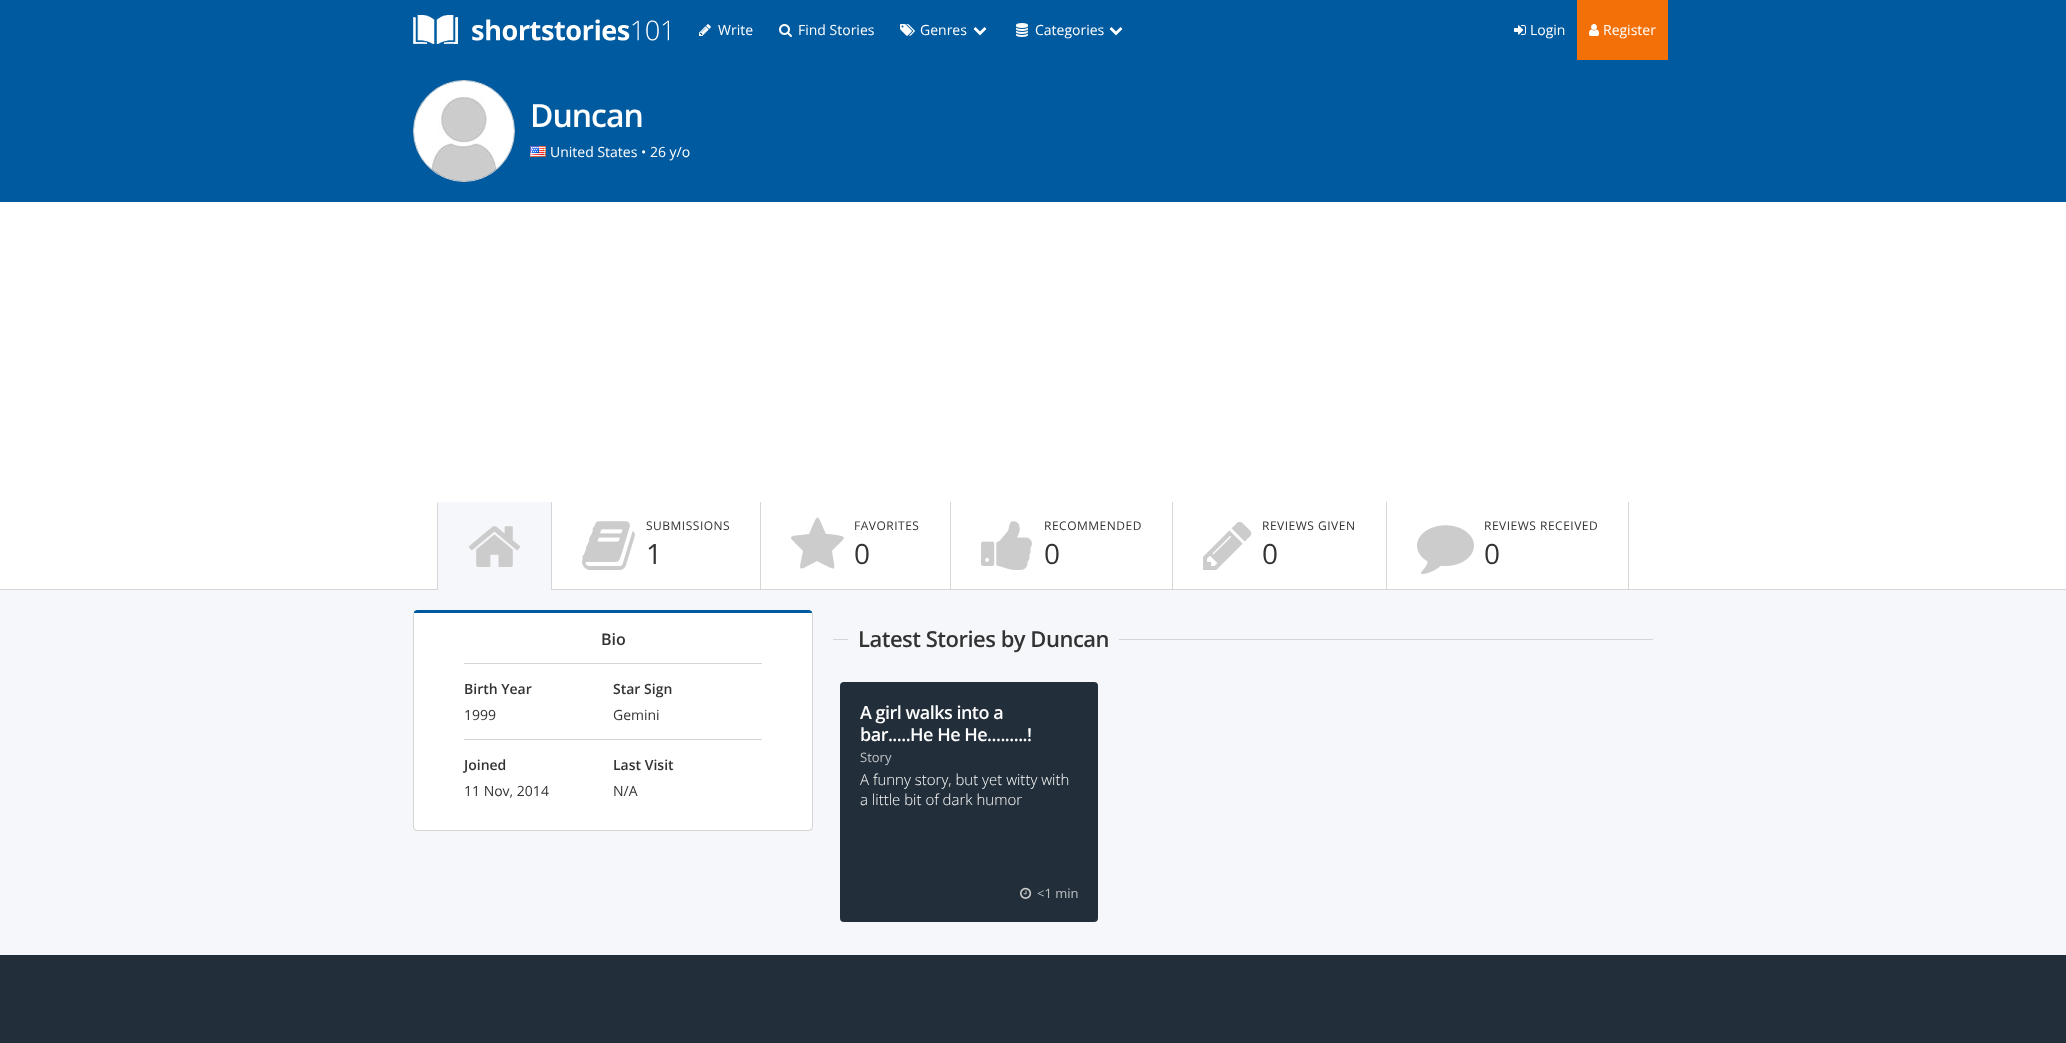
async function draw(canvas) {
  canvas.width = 2066
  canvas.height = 1043
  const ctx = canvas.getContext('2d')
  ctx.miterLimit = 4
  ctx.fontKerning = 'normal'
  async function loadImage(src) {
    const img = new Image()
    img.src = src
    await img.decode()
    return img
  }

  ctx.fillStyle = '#f5f7fa'
  ctx.fillRect(0, 0, 2066, 1043)
  ctx.fillStyle = '#005a9f'
  ctx.fillRect(0, 0, 2066, 202)
  ctx.drawImage(await loadImage('image0.png'), 413, 15, 256, 29)
  ctx.drawImage(await loadImage('image1.png'), 699, 24, 12, 12)
  ctx.font = '14px Open Sans'
  ctx.fillStyle = '#fff'
  ctx.fillText('Write', 718, 35)
  ctx.drawImage(await loadImage('image2.png'), 779, 24, 13, 13)
  ctx.fillText('Find Stories', 798, 35)
  ctx.drawImage(await loadImage('image3.png'), 900, 24, 15, 12)
  ctx.fillText('Genres', 920, 35)
  ctx.drawImage(await loadImage('image4.png'), 973, 27, 14, 9)
  ctx.drawImage(await loadImage('image5.png'), 1016, 23, 12, 14)
  ctx.fillText('Categories', 1035, 35)
  ctx.drawImage(await loadImage('image4.png'), 1109, 27, 14, 9)
  ctx.drawImage(await loadImage('image6.png'), 1514, 25, 12, 10)
  ctx.fillText('Login', 1530, 35)
  ctx.fillStyle = '#f27007'
  ctx.fillRect(1577, 0, 91, 60)
  ctx.drawImage(await loadImage('image7.png'), 1589, 24, 10, 12)
  ctx.fillStyle = '#fff'
  ctx.fillText('Register', 1603, 35)
  ctx.beginPath()
  ctx.arc(464, 131, 50.5, 0, 2 * Math.PI)
  ctx.strokeStyle = '#ccc'
  ctx.stroke()
  ctx.drawImage(await loadImage('image8.png'), 414, 81, 100, 100)
  ctx.letterSpacing = '-1px'
  ctx.font = '600 32px Open Sans'
  ctx.fillText('Duncan', 530, 127)
  ctx.drawImage(await loadImage('image9.png'), 530, 146, 16, 11)
  ctx.letterSpacing = '0px'
  ctx.font = '14px Open Sans'
  ctx.fillText('United States • 26 y/o', 550, 157)
  ctx.fillRect(0, 202, 2066, 387)
  ctx.fillStyle = '#d6d6d6'
  ctx.fillRect(0, 589, 2066, 1)
  ctx.fillStyle = '#f5f7fa'
  ctx.fillRect(437, 502, 114, 1)
  ctx.fillRect(438, 503, 113, 87)
  ctx.fillStyle = '#d6d6d6'
  ctx.fillRect(437, 503, 1, 87)
  ctx.drawImage(await loadImage('image10.png'), 468, 526, 52, 41)
  ctx.fillRect(551, 502, 1, 87)
  ctx.drawImage(await loadImage('image11.png'), 582, 521, 53, 49)
  ctx.letterSpacing = '0.5px'
  ctx.font = '12px Open Sans'
  ctx.fillStyle = '#333'
  ctx.fillText('SUBMISSIONS', 646, 530)
  ctx.letterSpacing = '-1px'
  ctx.font = '28px Open Sans'
  ctx.fillText('1', 646, 564)
  ctx.fillStyle = '#d6d6d6'
  ctx.fillRect(760, 502, 1, 87)
  ctx.fillStyle = '#ccc'
  ctx.beginPath()
  ctx.moveTo(844, 538)
  ctx.bezierCurveTo(844, 540, 833, 549, 832, 551)
  ctx.bezierCurveTo(835, 573, 839, 572, 817, 561)
  ctx.bezierCurveTo(796, 572, 799, 573, 803, 551)
  ctx.bezierCurveTo(787, 534, 785, 537, 809, 534)
  ctx.bezierCurveTo(819, 512, 816, 512, 826, 534)
  ctx.bezierCurveTo(829, 534, 844, 535, 844, 538)
  ctx.closePath()
  ctx.fill()
  ctx.letterSpacing = '0.5px'
  ctx.font = '12px Open Sans'
  ctx.fillStyle = '#333'
  ctx.fillText('FAVORITES', 854, 530)
  ctx.letterSpacing = '-1px'
  ctx.font = '28px Open Sans'
  ctx.fillText('0', 854, 564)
  ctx.fillStyle = '#d6d6d6'
  ctx.fillRect(950, 502, 1, 87)
  ctx.drawImage(await loadImage('image12.png'), 981, 521, 51, 49)
  ctx.letterSpacing = '0.5px'
  ctx.font = '12px Open Sans'
  ctx.fillStyle = '#333'
  ctx.fillText('RECOMMENDED', 1044, 530)
  ctx.letterSpacing = '-1px'
  ctx.font = '28px Open Sans'
  ctx.fillText('0', 1044, 564)
  ctx.fillStyle = '#d6d6d6'
  ctx.fillRect(1172, 502, 1, 87)
  ctx.drawImage(await loadImage('image13.png'), 1203, 521, 49, 49)
  ctx.letterSpacing = '0.5px'
  ctx.font = '12px Open Sans'
  ctx.fillStyle = '#333'
  ctx.fillText('REVIEWS GIVEN', 1262, 530)
  ctx.letterSpacing = '-1px'
  ctx.font = '28px Open Sans'
  ctx.fillText('0', 1262, 564)
  ctx.fillStyle = '#d6d6d6'
  ctx.fillRect(1628, 502, 1, 87)
  ctx.fillRect(1386, 502, 1, 87)
  ctx.drawImage(await loadImage('image14.png'), 1417, 525, 57, 50)
  ctx.letterSpacing = '0.5px'
  ctx.font = '12px Open Sans'
  ctx.fillStyle = '#333'
  ctx.fillText('REVIEWS RECEIVED', 1484, 530)
  ctx.letterSpacing = '-1px'
  ctx.font = '28px Open Sans'
  ctx.fillText('0', 1484, 564)
  ctx.fillStyle = '#fff'
  ctx.beginPath()
  ctx.moveTo(417, 613)
  ctx.lineTo(809, 613)
  ctx.bezierCurveTo(811, 613, 812, 613, 812, 614)
  ctx.lineTo(812, 827)
  ctx.bezierCurveTo(812, 829, 811, 830, 809, 830)
  ctx.lineTo(417, 830)
  ctx.bezierCurveTo(415, 830, 414, 829, 414, 827)
  ctx.lineTo(414, 614)
  ctx.bezierCurveTo(414, 613, 415, 613, 417, 613)
  ctx.closePath()
  ctx.fill()
  ctx.fillStyle = '#005a9f'
  ctx.beginPath()
  ctx.moveTo(417, 610)
  ctx.bezierCurveTo(416, 610, 414, 611, 414, 612)
  ctx.lineTo(414, 613)
  ctx.lineTo(417, 613)
  ctx.lineTo(810, 613)
  ctx.lineTo(812, 613)
  ctx.lineTo(812, 612)
  ctx.bezierCurveTo(812, 611, 810, 610, 809, 610)
  ctx.closePath()
  ctx.fill()
  ctx.fillStyle = '#d6d6d6'
  ctx.beginPath()
  ctx.moveTo(813, 827)
  ctx.lineTo(813, 614)
  ctx.lineTo(812, 612)
  ctx.lineTo(812, 613)
  ctx.lineTo(812, 827)
  ctx.lineTo(811, 829)
  ctx.lineTo(812, 830)
  ctx.closePath()
  ctx.fill()
  ctx.beginPath()
  ctx.moveTo(417, 831)
  ctx.lineTo(809, 831)
  ctx.lineTo(812, 830)
  ctx.lineTo(811, 829)
  ctx.lineTo(809, 830)
  ctx.lineTo(417, 830)
  ctx.lineTo(415, 829)
  ctx.lineTo(414, 830)
  ctx.closePath()
  ctx.fill()
  ctx.beginPath()
  ctx.moveTo(413, 614)
  ctx.lineTo(413, 827)
  ctx.bezierCurveTo(413, 828, 414, 829, 414, 830)
  ctx.lineTo(415, 829)
  ctx.lineTo(414, 827)
  ctx.lineTo(414, 613)
  ctx.lineTo(414, 612)
  ctx.closePath()
  ctx.fill()
  ctx.fillRect(464, 663, 298, 1)
  ctx.letterSpacing = '0px'
  ctx.font = '600 16px Open Sans'
  ctx.fillStyle = '#333'
  ctx.fillText('Bio', 601, 645)
  ctx.fillStyle = '#d6d6d6'
  ctx.fillRect(464, 739, 298, 1)
  ctx.font = '600 14px Open Sans'
  ctx.fillStyle = '#333'
  ctx.fillText('Birth Year', 464, 694)
  ctx.font = '14px Open Sans'
  ctx.fillText('1999', 464, 720)
  ctx.font = '600 14px Open Sans'
  ctx.fillText('Star Sign', 613, 694)
  ctx.font = '14px Open Sans'
  ctx.fillText('Gemini', 613, 720)
  ctx.font = '600 14px Open Sans'
  ctx.fillText('Joined', 464, 770)
  ctx.font = '14px Open Sans'
  ctx.fillText('11 Nov, 2014', 464, 796)
  ctx.font = '600 14px Open Sans'
  ctx.fillText('Last Visit', 613, 770)
  ctx.font = '14px Open Sans'
  ctx.fillText('N/A', 613, 796)
  ctx.fillStyle = '#d6d6d6'
  ctx.fillRect(833, 639, 820, 1)
  ctx.fillStyle = '#f5f7fa'
  ctx.fillRect(848, 639, 271, 1)
  ctx.letterSpacing = '-0.5px'
  ctx.font = '600 22px Open Sans'
  ctx.fillStyle = '#333'
  ctx.fillText('Latest Stories by Duncan', 858, 647)
  ctx.fillStyle = '#222e39'
  ctx.beginPath()
  ctx.roundRect(840, 682, 258, 240, 4)
  ctx.fill()
  ctx.font = '600 18px Open Sans'
  ctx.fillStyle = '#fff'
  ctx.fillText('A girl walks into a', 860, 719)
  ctx.fillText('bar.....He He He.........!', 860, 741)
  ctx.letterSpacing = '0px'
  ctx.font = '13px Open Sans'
  ctx.fillStyle = '#bdc0c4'
  ctx.fillText('Story', 860, 762)
  ctx.font = '300 15px Open Sans'
  ctx.fillStyle = '#fff'
  ctx.fillText('A funny story, but yet witty with', 860, 785)
  ctx.fillText('a little bit of dark humor', 860, 805)
  ctx.drawImage(await loadImage('image15.png'), 1020, 887, 12, 12)
  ctx.font = '13px Open Sans'
  ctx.fillStyle = '#bdc0c4'
  ctx.fillText('<1 min', 1037, 898)
  ctx.fillStyle = '#222e39'
  ctx.fillRect(0, 955, 2066, 88)
}

draw(document.querySelector('canvas'))
